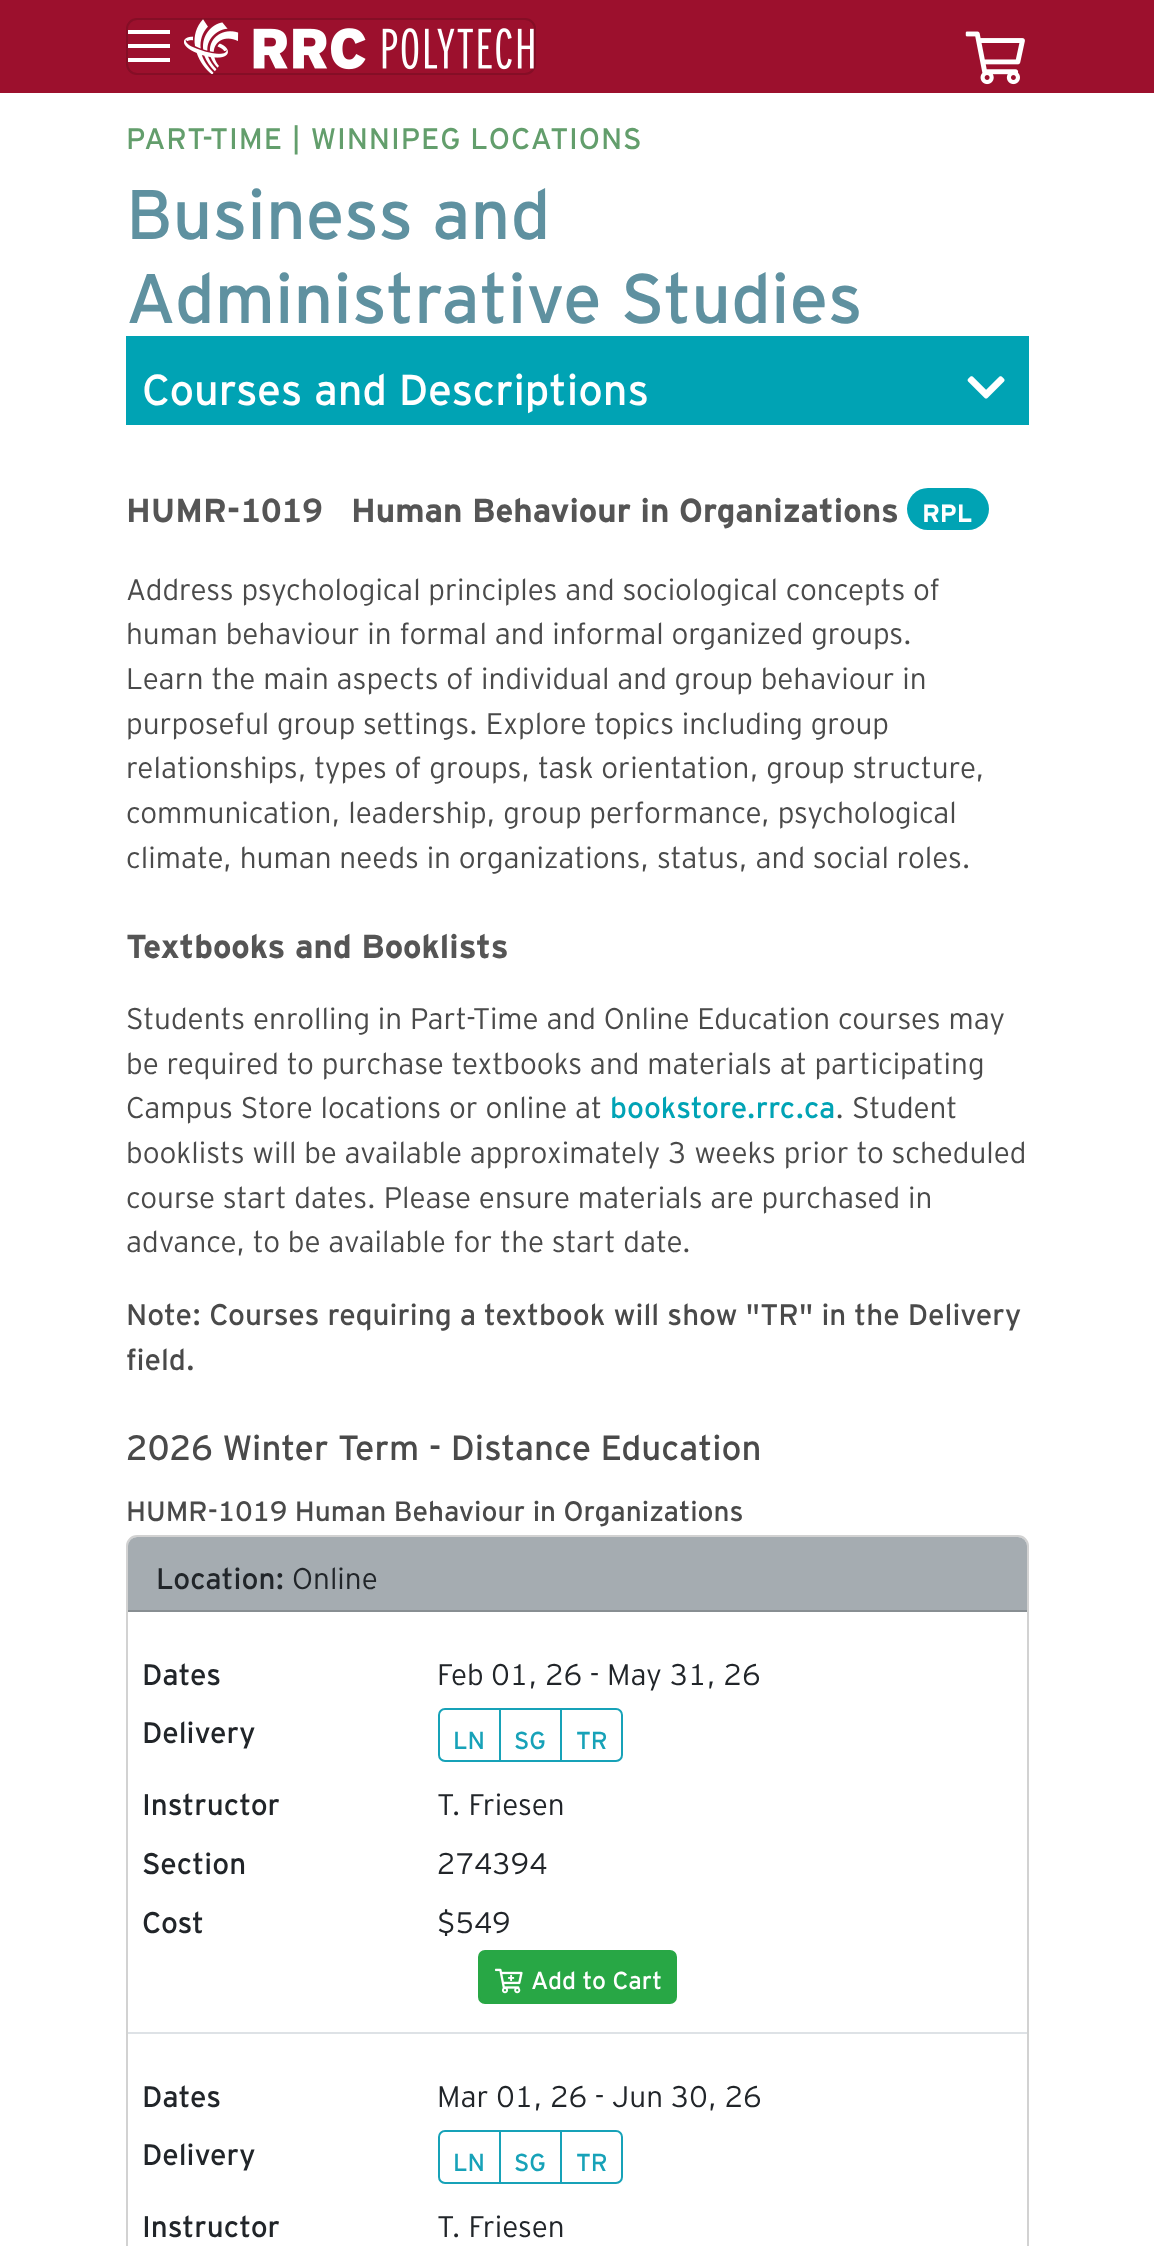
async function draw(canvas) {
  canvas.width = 1154
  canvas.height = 2246
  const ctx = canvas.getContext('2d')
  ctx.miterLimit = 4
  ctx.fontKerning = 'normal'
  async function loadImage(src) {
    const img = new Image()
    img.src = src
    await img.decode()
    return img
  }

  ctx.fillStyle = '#fff'
  ctx.fillRect(0, 0, 1154, 2246)
  ctx.fillStyle = '#9c102d'
  ctx.fillRect(0, 0, 1154, 93)
  ctx.beginPath()
  ctx.roundRect(127, 19, 408, 55, 10)
  ctx.strokeStyle = '#850e26'
  ctx.lineWidth = 2
  ctx.stroke()
  ctx.fillStyle = '#fff'
  ctx.fillRect(128, 30, 42, 4)
  ctx.fillRect(128, 44, 42, 4)
  ctx.fillRect(128, 58, 42, 4)
  ctx.drawImage(await loadImage('image0.png'), 184, 19, 350, 55)
  ctx.drawImage(await loadImage('image1.png'), 965, 31, 60, 54)
  ctx.letterSpacing = '0.9px'
  ctx.font = '29.75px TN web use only'
  ctx.fillStyle = '#639e6c'
  ctx.fillText('PART-TIME | WINNIPEG LOCATIONS', 126, 149)
  ctx.letterSpacing = '0px'
  ctx.font = '70px TN web use only'
  ctx.fillStyle = '#5f91a0'
  ctx.fillText('Business and', 126, 239)
  ctx.fillText('Administrative Studies', 126, 323)
  ctx.fillStyle = '#00a3b4'
  ctx.fillRect(126, 336, 903, 89)
  ctx.font = '43.25px TN web use only'
  ctx.fillStyle = '#fff'
  ctx.fillText('Courses and Descriptions', 142, 405)
  ctx.drawImage(await loadImage('image2.png'), 967, 376, 38, 23)
  ctx.font = 'bold 33.25px TN web use only'
  ctx.fillStyle = '#555'
  ctx.fillText('HUMR-1019', 126, 522)
  ctx.fillText('Human Behaviour in Organizations', 351, 522)
  ctx.fillStyle = '#00a3b4'
  ctx.beginPath()
  ctx.roundRect(907, 488, 82, 42, 21)
  ctx.fill()
  ctx.font = 'bold 25px TN web use only'
  ctx.fillStyle = '#fff'
  ctx.fillText('RPL', 922, 522)
  ctx.font = '300 29.75px TN web use only'
  ctx.fillStyle = '#4a4a4a'
  ctx.fillText('Address psychological principles and sociological concepts of', 126, 600)
  ctx.fillText('human behaviour in formal and informal organized groups.', 126, 644)
  ctx.fillText('Learn the main aspects of individual and group behaviour in', 126, 689)
  ctx.fillText('purposeful group settings. Explore topics including group', 126, 734)
  ctx.fillText('relationships, types of groups, task orientation, group structure,', 126, 778)
  ctx.fillText('communication, leadership, group performance, psychological', 126, 823)
  ctx.fillText('climate, human needs in organizations, status, and social roles.', 126, 868)
  ctx.font = 'bold 33.25px TN web use only'
  ctx.fillStyle = '#555'
  ctx.fillText('Textbooks and Booklists', 126, 958)
  ctx.font = '300 29.75px TN web use only'
  ctx.fillStyle = '#4a4a4a'
  ctx.fillText('Students enrolling in Part-Time and Online Education courses may', 126, 1029)
  ctx.fillText('be required to purchase textbooks and materials at participating', 126, 1074)
  ctx.fillText('Campus Store locations or online at', 126, 1118)
  ctx.font = '29.75px TN web use only'
  ctx.fillStyle = '#00a3b5'
  ctx.fillText('bookstore.rrc.ca', 610, 1118)
  ctx.font = '300 29.75px TN web use only'
  ctx.fillStyle = '#4a4a4a'
  ctx.fillText('. Student', 835, 1118)
  ctx.fillText('booklists will be available approximately 3 weeks prior to scheduled', 126, 1163)
  ctx.fillText('course start dates. Please ensure materials are purchased in', 126, 1208)
  ctx.fillText('advance, to be available for the start date.', 126, 1252)
  ctx.font = '29.75px TN web use only'
  ctx.fillText('Note: Courses requiring a textbook will show "TR" in the Delivery', 126, 1325)
  ctx.fillText('field.', 126, 1370)
  ctx.font = '35px TN web use only'
  ctx.fillText('2026 Winter Term - Distance Education', 126, 1460)
  ctx.font = '28px TN web use only'
  ctx.fillText('HUMR-1019 Human Behaviour in Organizations', 126, 1521)
  ctx.beginPath()
  ctx.roundRect(127, 1536, 901, 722, 10)
  ctx.strokeStyle = '#d2d2d2'
  ctx.stroke()
  ctx.fillStyle = '#a5acb1'
  ctx.beginPath()
  ctx.roundRect(128, 1537, 899, 75, [9, 9, 0, 0])
  ctx.fill()
  ctx.fillStyle = '#888e92'
  ctx.fillRect(128, 1610, 899, 2)
  ctx.font = '29.75px TN web use only'
  ctx.fillStyle = '#212529'
  ctx.fillText('Location:', 156, 1589)
  ctx.font = '300 29.75px TN web use only'
  ctx.fillText('Online', 292, 1589)
  ctx.font = '29.75px TN web use only'
  ctx.fillText('Dates', 142, 1685)
  ctx.font = '300 29.75px TN web use only'
  ctx.fillText('Feb 01, 26 - May 31, 26', 437, 1685)
  ctx.font = '29.75px TN web use only'
  ctx.fillText('Delivery', 142, 1743)
  ctx.beginPath()
  ctx.roundRect(439, 1709, 61, 52, [6, 0, 0, 6])
  ctx.strokeStyle = '#17a2b8'
  ctx.stroke()
  ctx.font = '24.5px TN web use only'
  ctx.fillStyle = '#17a2b8'
  ctx.fillText('LN', 453, 1749)
  ctx.strokeRect(500, 1709, 61, 52)
  ctx.fillText('SG', 514, 1749)
  ctx.beginPath()
  ctx.roundRect(561, 1709, 61, 52, [0, 6, 6, 0])
  ctx.stroke()
  ctx.fillText('TR', 576, 1749)
  ctx.font = '29.75px TN web use only'
  ctx.fillStyle = '#212529'
  ctx.fillText('Instructor', 142, 1815)
  ctx.font = '300 29.75px TN web use only'
  ctx.fillText('T. Friesen', 437, 1815)
  ctx.font = '29.75px TN web use only'
  ctx.fillText('Section', 142, 1874)
  ctx.font = '300 29.75px TN web use only'
  ctx.fillText('274394', 437, 1874)
  ctx.font = '29.75px TN web use only'
  ctx.fillText('Cost', 142, 1933)
  ctx.font = '300 29.75px TN web use only'
  ctx.fillText('$549', 437, 1933)
  ctx.fillStyle = '#28a745'
  ctx.beginPath()
  ctx.roundRect(479, 1951, 197, 52, 6)
  ctx.fill()
  ctx.strokeStyle = '#28a745'
  ctx.stroke()
  ctx.drawImage(await loadImage('image3.png'), 495, 1968, 28, 26)
  ctx.font = '24.5px TN web use only'
  ctx.fillStyle = '#fff'
  ctx.fillText('Add to Cart', 531, 1989)
  ctx.fillStyle = '#dee2e6'
  ctx.fillRect(128, 2032, 899, 2)
  ctx.font = '29.75px TN web use only'
  ctx.fillStyle = '#212529'
  ctx.fillText('Dates', 142, 2107)
  ctx.font = '300 29.75px TN web use only'
  ctx.fillText('Mar 01, 26 - Jun 30, 26', 437, 2107)
  ctx.font = '29.75px TN web use only'
  ctx.fillText('Delivery', 142, 2165)
  ctx.beginPath()
  ctx.roundRect(439, 2131, 61, 52, [6, 0, 0, 6])
  ctx.strokeStyle = '#17a2b8'
  ctx.stroke()
  ctx.font = '24.5px TN web use only'
  ctx.fillStyle = '#17a2b8'
  ctx.fillText('LN', 453, 2171)
  ctx.strokeRect(500, 2131, 61, 52)
  ctx.fillText('SG', 514, 2171)
  ctx.beginPath()
  ctx.roundRect(561, 2131, 61, 52, [0, 6, 6, 0])
  ctx.stroke()
  ctx.fillText('TR', 576, 2171)
  ctx.font = '29.75px TN web use only'
  ctx.fillStyle = '#212529'
  ctx.fillText('Instructor', 142, 2237)
  ctx.font = '300 29.75px TN web use only'
  ctx.fillText('T. Friesen', 437, 2237)
}

draw(document.querySelector('canvas'))
